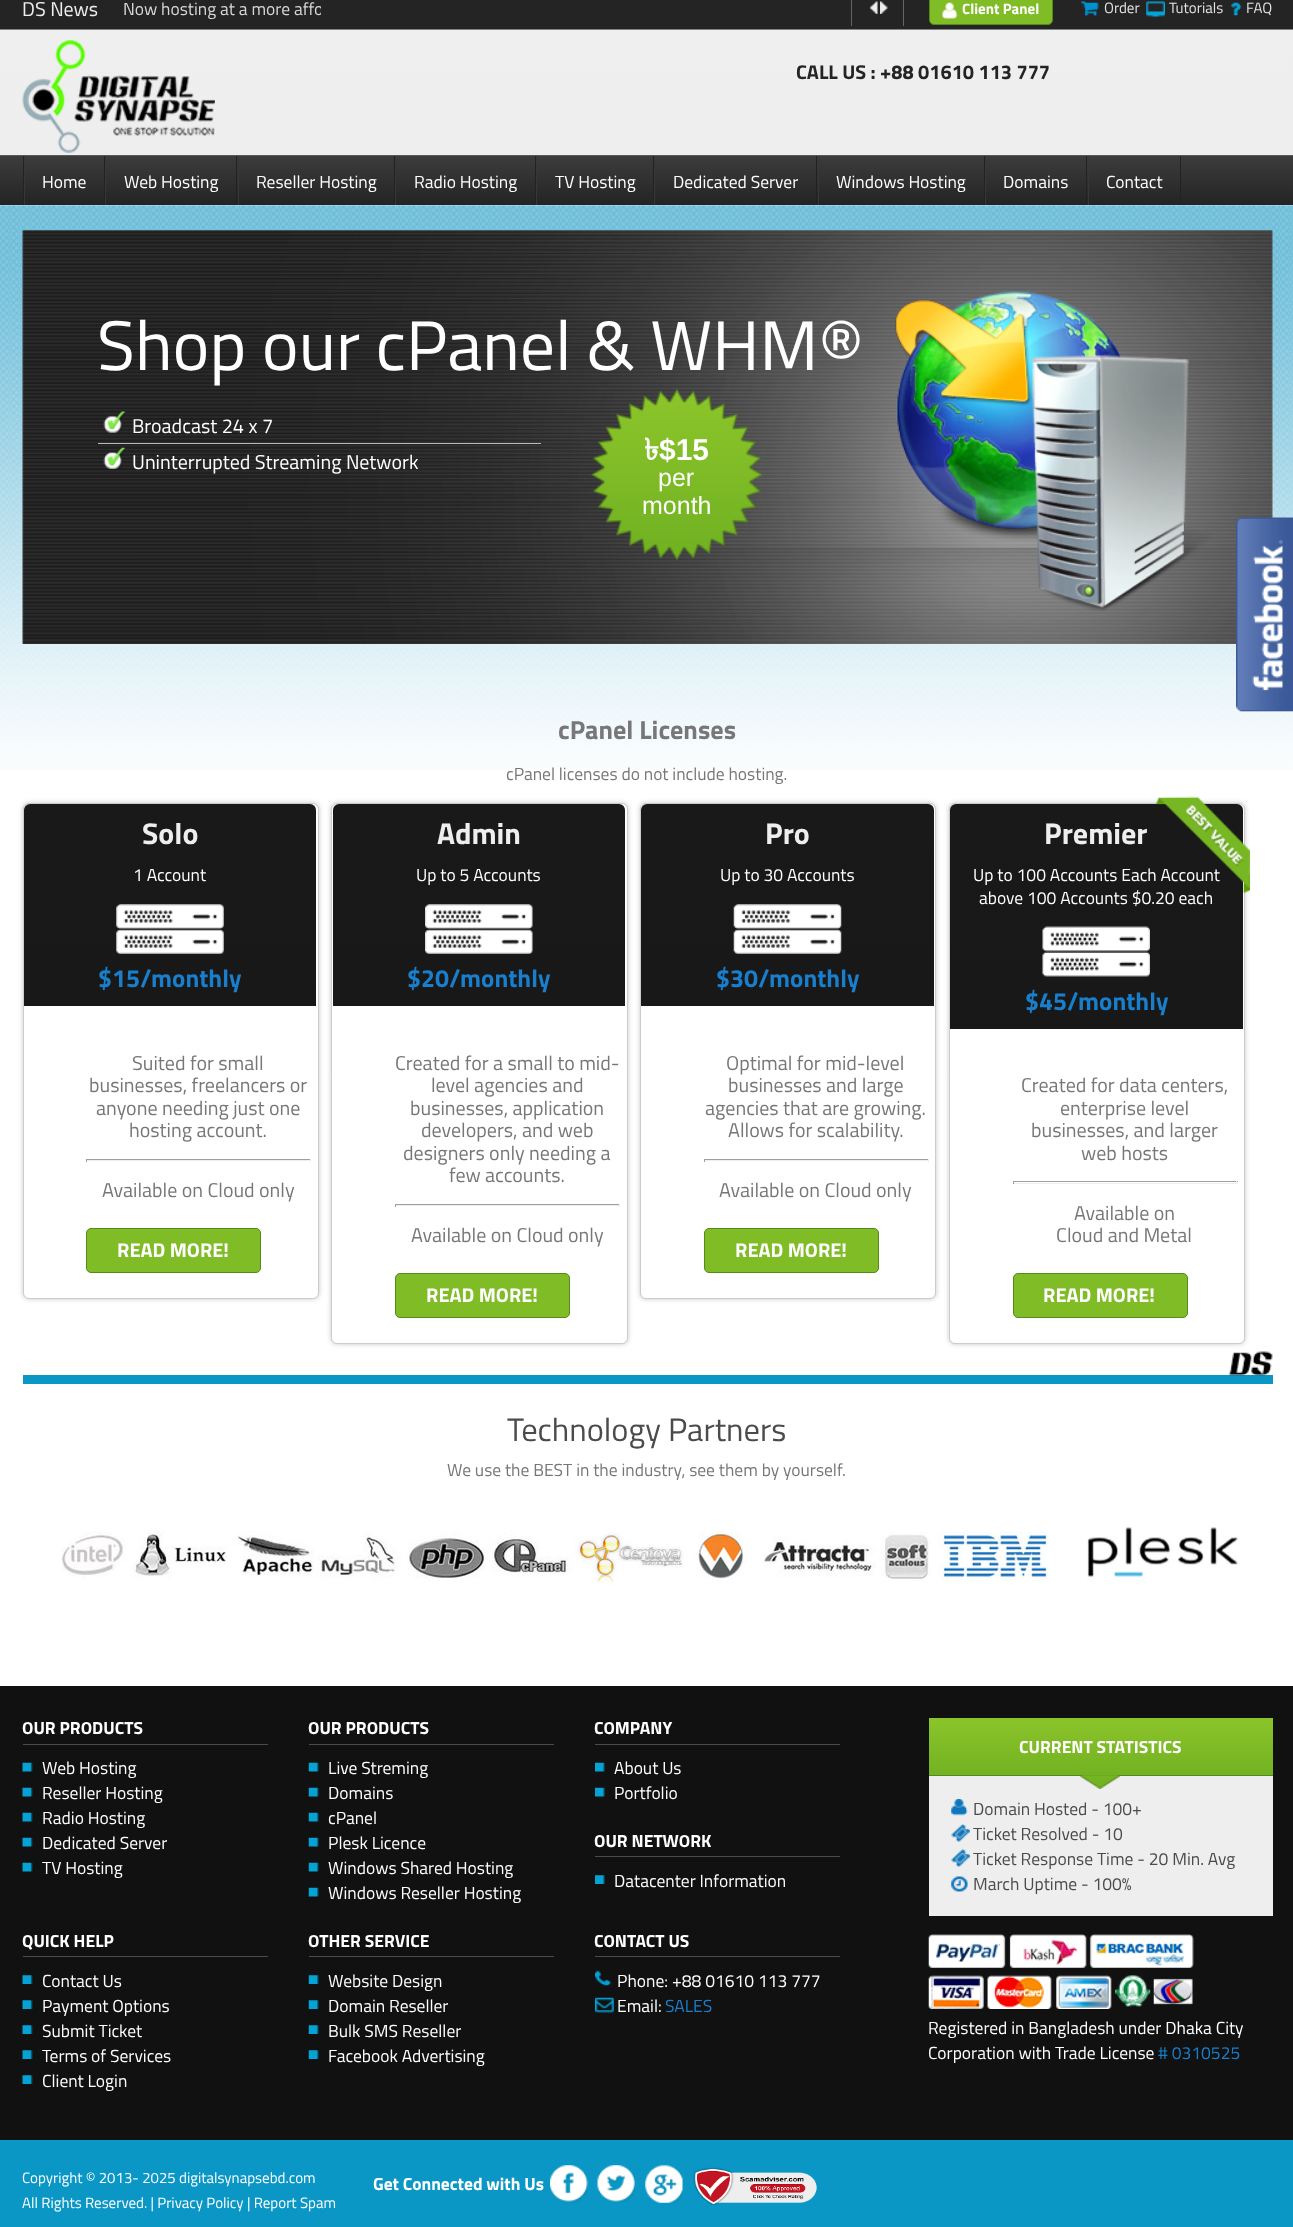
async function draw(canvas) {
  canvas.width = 1293
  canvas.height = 2227
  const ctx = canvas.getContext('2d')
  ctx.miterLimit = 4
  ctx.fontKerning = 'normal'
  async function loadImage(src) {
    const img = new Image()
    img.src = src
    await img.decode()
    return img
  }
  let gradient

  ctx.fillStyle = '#fff'
  ctx.fillRect(0, 0, 1293, 2227)
  ctx.fillStyle = '#242424'
  ctx.fillRect(0, 0, 1293, 29)
  ctx.fillStyle = '#838383'
  ctx.fillRect(0, 29, 1293, 1)
  ctx.font = '20px Titillium Web'
  ctx.fillStyle = '#efeeee'
  ctx.fillText('DS News', 22, 16)
  ctx.font = '17.5px Titillium Web'
  ctx.fillStyle = '#d7d7d7'
  ctx.fillText('Now hosting at a more affo', 123, 15)
  ctx.fillStyle = '#242424'
  ctx.fillRect(321, 6, 2, 9)
  ctx.fillStyle = '#636363'
  ctx.fillRect(903, 0, 1, 26)
  ctx.fillRect(851, 0, 1, 26)
  ctx.drawImage(await loadImage('image0.png'), 870, 1, 8, 13)
  ctx.drawImage(await loadImage('image1.png'), 880, 1, 8, 13)
  ctx.fillStyle = '#7fbc26'
  ctx.beginPath()
  ctx.roundRect(929.5, -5.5, 123, 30, 4.5)
  ctx.fill()
  ctx.strokeStyle = '#56891b'
  ctx.stroke()
  ctx.drawImage(await loadImage('image2.png'), 942, 2, 16, 17)
  ctx.font = 'bold 15px Titillium Web'
  ctx.fillStyle = '#fff'
  ctx.fillText('Client Panel', 962, 14)
  ctx.drawImage(await loadImage('image3.png'), 1081, 1, 18, 16)
  ctx.font = '15px Titillium Web'
  ctx.fillStyle = '#e3e3e3'
  ctx.fillText('Order', 1104, 13)
  ctx.drawImage(await loadImage('image4.png'), 1146, 1, 19, 16)
  ctx.fillText('Tutorials', 1169, 13)
  ctx.drawImage(await loadImage('image5.png'), 1231, 2, 11, 14)
  ctx.fillText('FAQ', 1246, 13)
  gradient = ctx.createLinearGradient(647, 30, 647, 155)
  gradient.addColorStop(0, '#efefef')
  gradient.addColorStop(1, '#efeeee')
  ctx.fillStyle = gradient
  ctx.fillRect(0, 30, 1293, 125)
  ctx.drawImage(await loadImage('image6.png'), 22, 40, 193, 113)
  ctx.font = 'bold 20px Titillium Web'
  ctx.fillStyle = '#242424'
  ctx.fillText('CALL US : +88 01610 113 777', 796, 79)
  gradient = ctx.createLinearGradient(647, 156, 647, 205)
  gradient.addColorStop(0, '#3c3c3c')
  gradient.addColorStop(1, '#242424')
  ctx.fillStyle = gradient
  ctx.fillRect(0, 156, 1293, 49)
  ctx.fillStyle = '#595959'
  ctx.fillRect(0, 155, 1293, 1)
  ctx.fillStyle = '#222'
  ctx.fillRect(23, 156, 1, 49)
  ctx.fillRect(104, 156, 1, 49)
  ctx.fillStyle = '#373737'
  ctx.fillRect(24, 156, 1, 49)
  ctx.font = '17.5px Titillium Web'
  ctx.fillStyle = '#fff'
  ctx.fillText('Home', 42, 188)
  ctx.fillStyle = '#222'
  ctx.fillRect(236, 156, 1, 49)
  ctx.fillStyle = '#373737'
  ctx.fillRect(105, 156, 1, 49)
  ctx.fillStyle = '#fff'
  ctx.fillText('Web Hosting', 124, 188)
  ctx.fillStyle = '#222'
  ctx.fillRect(394, 156, 1, 49)
  ctx.fillStyle = '#373737'
  ctx.fillRect(238, 156, 1, 49)
  ctx.fillStyle = '#fff'
  ctx.fillText('Reseller Hosting', 256, 188)
  ctx.fillStyle = '#222'
  ctx.fillRect(535, 156, 1, 49)
  ctx.fillStyle = '#373737'
  ctx.fillRect(395, 156, 1, 49)
  ctx.fillStyle = '#fff'
  ctx.fillText('Radio Hosting', 414, 188)
  ctx.fillStyle = '#222'
  ctx.fillRect(653, 156, 1, 49)
  ctx.fillStyle = '#373737'
  ctx.fillRect(536, 156, 1, 49)
  ctx.fillStyle = '#fff'
  ctx.fillText('TV Hosting', 555, 188)
  ctx.fillStyle = '#222'
  ctx.fillRect(816, 156, 1, 49)
  ctx.fillStyle = '#373737'
  ctx.fillRect(654, 156, 1, 49)
  ctx.fillStyle = '#fff'
  ctx.fillText('Dedicated Server', 673, 188)
  ctx.fillStyle = '#222'
  ctx.fillRect(984, 156, 1, 49)
  ctx.fillStyle = '#373737'
  ctx.fillRect(818, 156, 1, 49)
  ctx.fillStyle = '#fff'
  ctx.fillText('Windows Hosting', 836, 188)
  ctx.fillStyle = '#222'
  ctx.fillRect(1086, 156, 1, 49)
  ctx.fillStyle = '#373737'
  ctx.fillRect(985, 156, 1, 49)
  ctx.fillStyle = '#fff'
  ctx.fillText('Domains', 1003, 188)
  ctx.fillStyle = '#222'
  ctx.fillRect(1180, 156, 1, 49)
  ctx.fillStyle = '#373737'
  ctx.fillRect(1088, 156, 1, 49)
  ctx.fillStyle = '#fff'
  ctx.fillText('Contact', 1106, 188)
  ctx.drawImage(await loadImage('image7.png'), 0, 205, 1293, 566)
  ctx.drawImage(await loadImage('image8.png'), 22, 230, 1251, 414)
  ctx.font = '70px Titillium Web'
  ctx.fillText('Shop our cPanel & WHM®', 97, 370)
  ctx.drawImage(await loadImage('image9.png'), 103, 411, 23, 22)
  ctx.fillStyle = '#bbbaba'
  ctx.fillRect(98, 443, 443, 1)
  ctx.font = '20px Titillium Web'
  ctx.fillStyle = '#fff'
  ctx.fillText('Broadcast 24 x 7', 132, 433)
  ctx.drawImage(await loadImage('image10.png'), 103, 447, 23, 22)
  ctx.fillText('Uninterrupted Streaming Network', 132, 469)
  ctx.drawImage(await loadImage('image11.png'), 591, 389, 172, 172)
  ctx.font = 'bold 30px Lohit Bengali'
  ctx.fillText('৳', 644, 460)
  ctx.font = 'bold 30px Liberation Sans'
  ctx.fillText('$15', 659, 460)
  ctx.font = '25px Liberation Sans'
  ctx.fillText('per', 658, 486)
  ctx.fillText('month', 642, 514)
  ctx.font = 'bold 26.25px Titillium Web'
  ctx.fillStyle = '#777'
  ctx.fillText('cPanel Licenses', 558, 739)
  ctx.font = '17.5px Titillium Web'
  ctx.fillText('cPanel licenses do not include hosting.', 506, 780)
  ctx.fillStyle = '#c6c6c6'
  ctx.filter = 'blur(2.5px)'
  ctx.beginPath()
  ctx.roundRect(23, 803, 296, 496, 6)
  ctx.fill()
  ctx.filter = 'none'
  ctx.fillStyle = '#fff'
  ctx.beginPath()
  ctx.roundRect(23.5, 803.5, 295, 495, 5.5)
  ctx.fill()
  ctx.strokeStyle = '#ccc'
  ctx.stroke()
  gradient = ctx.createLinearGradient(170, 804, 170, 1006)
  gradient.addColorStop(0, '#191919')
  gradient.addColorStop(1, '#181818')
  ctx.fillStyle = gradient
  ctx.beginPath()
  ctx.roundRect(24, 804, 292, 202, [6, 6, 0, 0])
  ctx.fill()
  ctx.font = 'bold 30px Titillium Web'
  ctx.fillStyle = '#efeeee'
  ctx.fillText('Solo', 142, 844)
  ctx.font = '17.5px Titillium Web'
  ctx.fillStyle = '#fff'
  ctx.fillText('1 Account', 133, 881)
  ctx.drawImage(await loadImage('image12.png'), 116, 904, 108, 50)
  ctx.font = 'bold 25px Titillium Web'
  ctx.fillStyle = '#197fcc'
  ctx.fillText('$15/monthly', 98, 987)
  ctx.font = '20px Titillium Web'
  ctx.fillStyle = '#777'
  ctx.fillText('Suited for small', 132, 1070)
  ctx.fillText('businesses, freelancers or', 89, 1092)
  ctx.fillText('anyone needing just one', 96, 1115)
  ctx.fillText('hosting account.', 129, 1137)
  ctx.fillStyle = '#9f9f9f'
  ctx.fillRect(86, 1159, 225, 1)
  ctx.fillStyle = '#eee'
  ctx.fillRect(310, 1159, 1, 3)
  ctx.fillRect(86, 1160, 225, 1)
  ctx.fillStyle = '#9f9f9f'
  ctx.fillRect(86, 1159, 1, 3)
  ctx.fillStyle = '#777'
  ctx.fillText('Available on Cloud only', 102, 1197)
  ctx.fillStyle = '#7fbc26'
  ctx.beginPath()
  ctx.roundRect(86.5, 1228.5, 174, 44, 4.5)
  ctx.fill()
  ctx.strokeStyle = '#56891b'
  ctx.stroke()
  ctx.font = 'bold 20px Titillium Web'
  ctx.fillStyle = '#fff'
  ctx.fillText('READ MORE!', 117, 1257)
  ctx.fillStyle = '#c6c6c6'
  ctx.filter = 'blur(2.5px)'
  ctx.beginPath()
  ctx.roundRect(331, 803, 297, 541, 6)
  ctx.fill()
  ctx.filter = 'none'
  ctx.fillStyle = '#fff'
  ctx.beginPath()
  ctx.roundRect(331.5, 803.5, 296, 540, 5.5)
  ctx.fill()
  ctx.strokeStyle = '#ccc'
  ctx.stroke()
  gradient = ctx.createLinearGradient(479, 804, 479, 1006)
  gradient.addColorStop(0, '#191919')
  gradient.addColorStop(1, '#181818')
  ctx.fillStyle = gradient
  ctx.beginPath()
  ctx.roundRect(333, 804, 292, 202, [6, 6, 0, 0])
  ctx.fill()
  ctx.font = 'bold 30px Titillium Web'
  ctx.fillStyle = '#efeeee'
  ctx.fillText('Admin', 437, 844)
  ctx.font = '17.5px Titillium Web'
  ctx.fillStyle = '#fff'
  ctx.fillText('Up to 5 Accounts', 416, 881)
  ctx.drawImage(await loadImage('image13.png'), 425, 904, 108, 50)
  ctx.font = 'bold 25px Titillium Web'
  ctx.fillStyle = '#197fcc'
  ctx.fillText('$20/monthly', 407, 987)
  ctx.font = '20px Titillium Web'
  ctx.fillStyle = '#777'
  ctx.fillText('Created for a small to mid-', 395, 1070)
  ctx.fillText('level agencies and', 431, 1092)
  ctx.fillText('businesses, application', 410, 1115)
  ctx.fillText('developers, and web', 421, 1137)
  ctx.fillText('designers only needing a', 403, 1160)
  ctx.fillText('few accounts.', 449, 1182)
  ctx.fillStyle = '#9f9f9f'
  ctx.fillRect(395, 1204, 225, 1)
  ctx.fillStyle = '#eee'
  ctx.fillRect(619, 1204, 1, 3)
  ctx.fillRect(395, 1205, 225, 1)
  ctx.fillStyle = '#9f9f9f'
  ctx.fillRect(395, 1204, 1, 3)
  ctx.fillStyle = '#777'
  ctx.fillText('Available on Cloud only', 411, 1242)
  ctx.fillStyle = '#7fbc26'
  ctx.beginPath()
  ctx.roundRect(395.5, 1273.5, 174, 44, 4.5)
  ctx.fill()
  ctx.strokeStyle = '#56891b'
  ctx.stroke()
  ctx.font = 'bold 20px Titillium Web'
  ctx.fillStyle = '#fff'
  ctx.fillText('READ MORE!', 426, 1302)
  ctx.fillStyle = '#c6c6c6'
  ctx.filter = 'blur(2.5px)'
  ctx.beginPath()
  ctx.roundRect(640, 803, 296, 496, 6)
  ctx.fill()
  ctx.filter = 'none'
  ctx.fillStyle = '#fff'
  ctx.beginPath()
  ctx.roundRect(640.5, 803.5, 295, 495, 5.5)
  ctx.fill()
  ctx.strokeStyle = '#ccc'
  ctx.stroke()
  gradient = ctx.createLinearGradient(788, 804, 788, 1006)
  gradient.addColorStop(0, '#191919')
  gradient.addColorStop(1, '#181818')
  ctx.fillStyle = gradient
  ctx.beginPath()
  ctx.roundRect(641, 804, 293, 202, [6, 6, 0, 0])
  ctx.fill()
  ctx.font = 'bold 30px Titillium Web'
  ctx.fillStyle = '#efeeee'
  ctx.fillText('Pro', 765, 844)
  ctx.font = '17.5px Titillium Web'
  ctx.fillStyle = '#fff'
  ctx.fillText('Up to 30 Accounts', 720, 881)
  ctx.drawImage(await loadImage('image14.png'), 733, 904, 109, 50)
  ctx.font = 'bold 25px Titillium Web'
  ctx.fillStyle = '#197fcc'
  ctx.fillText('$30/monthly', 716, 987)
  ctx.font = '20px Titillium Web'
  ctx.fillStyle = '#777'
  ctx.fillText('Optimal for mid-level', 726, 1070)
  ctx.fillText('businesses and large', 728, 1092)
  ctx.fillText('agencies that are growing.', 705, 1115)
  ctx.fillText('Allows for scalability.', 728, 1137)
  ctx.fillStyle = '#9f9f9f'
  ctx.fillRect(704, 1159, 225, 1)
  ctx.fillStyle = '#eee'
  ctx.fillRect(928, 1159, 1, 3)
  ctx.fillRect(704, 1160, 225, 1)
  ctx.fillStyle = '#9f9f9f'
  ctx.fillRect(704, 1159, 1, 3)
  ctx.fillStyle = '#777'
  ctx.fillText('Available on Cloud only', 719, 1197)
  ctx.fillStyle = '#7fbc26'
  ctx.beginPath()
  ctx.roundRect(704.5, 1228.5, 174, 44, 4.5)
  ctx.fill()
  ctx.strokeStyle = '#56891b'
  ctx.stroke()
  ctx.font = 'bold 20px Titillium Web'
  ctx.fillStyle = '#fff'
  ctx.fillText('READ MORE!', 735, 1257)
  ctx.fillStyle = '#c6c6c6'
  ctx.filter = 'blur(2.5px)'
  ctx.beginPath()
  ctx.roundRect(949, 803, 296, 541, 6)
  ctx.fill()
  ctx.filter = 'none'
  ctx.fillStyle = '#fff'
  ctx.beginPath()
  ctx.roundRect(949.5, 803.5, 295, 540, 5.5)
  ctx.fill()
  ctx.strokeStyle = '#ccc'
  ctx.stroke()
  gradient = ctx.createLinearGradient(1096, 804, 1096, 1029)
  gradient.addColorStop(0, '#191919')
  gradient.addColorStop(1, '#181818')
  ctx.fillStyle = gradient
  ctx.beginPath()
  ctx.roundRect(950, 804, 293, 225, [6, 6, 0, 0])
  ctx.fill()
  ctx.font = '17.5px Titillium Web'
  ctx.fillStyle = '#fff'
  ctx.fillText('Up to 100 Accounts Each Account', 973, 881)
  ctx.fillText('above 100 Accounts $0.20 each', 979, 904)
  ctx.drawImage(await loadImage('image15.png'), 1156, 796, 94, 97)
  ctx.font = 'bold 30px Titillium Web'
  ctx.fillStyle = '#efeeee'
  ctx.fillText('Premier', 1044, 844)
  ctx.drawImage(await loadImage('image16.png'), 1042, 926, 108, 51)
  ctx.font = 'bold 25px Titillium Web'
  ctx.fillStyle = '#197fcc'
  ctx.fillText('$45/monthly', 1025, 1010)
  ctx.font = '20px Titillium Web'
  ctx.fillStyle = '#777'
  ctx.fillText('Created for data centers,', 1021, 1092)
  ctx.fillText('enterprise level', 1060, 1115)
  ctx.fillText('businesses, and larger', 1031, 1137)
  ctx.fillText('web hosts', 1081, 1160)
  ctx.fillStyle = '#9f9f9f'
  ctx.fillRect(1013, 1181, 225, 1)
  ctx.fillStyle = '#eee'
  ctx.fillRect(1236, 1181, 1, 3)
  ctx.fillRect(1013, 1183, 225, 1)
  ctx.fillStyle = '#9f9f9f'
  ctx.fillRect(1013, 1181, 1, 3)
  ctx.fillStyle = '#777'
  ctx.fillText('Available on', 1074, 1220)
  ctx.fillText('Cloud and Metal', 1056, 1242)
  ctx.fillStyle = '#7fbc26'
  ctx.beginPath()
  ctx.roundRect(1013.5, 1273.5, 174, 44, 4.5)
  ctx.fill()
  ctx.strokeStyle = '#56891b'
  ctx.stroke()
  ctx.font = 'bold 20px Titillium Web'
  ctx.fillStyle = '#fff'
  ctx.fillText('READ MORE!', 1043, 1302)
  ctx.fillStyle = '#0a97c5'
  ctx.fillRect(23, 1375, 1250, 9)
  ctx.drawImage(await loadImage('image17.png'), 1228, 1351, 45, 25)
  ctx.font = '32.5px Titillium Web'
  ctx.fillStyle = '#4b4b4b'
  ctx.fillText('Technology Partners', 507, 1441)
  ctx.font = '17.5px Titillium Web'
  ctx.fillStyle = '#777'
  ctx.fillText('We use the BEST in the industry, see them by yourself.', 447, 1476)
  ctx.drawImage(await loadImage('image18.png'), 62, 1527, 1176, 59)
  ctx.fillStyle = '#111'
  ctx.fillRect(0, 1686, 1293, 454)
  ctx.fillStyle = '#4b4b4b'
  ctx.fillRect(23, 1744, 245, 1)
  ctx.font = 'bold 17.5px Titillium Web'
  ctx.fillStyle = '#fff'
  ctx.fillText('OUR PRODUCTS', 22, 1734)
  ctx.drawImage(await loadImage('image19.png'), 22, 1762, 11, 10)
  ctx.font = '17.5px Titillium Web'
  ctx.fillText('Web Hosting', 42, 1774)
  ctx.drawImage(await loadImage('image19.png'), 22, 1787, 11, 10)
  ctx.fillText('Reseller Hosting', 42, 1799)
  ctx.drawImage(await loadImage('image19.png'), 22, 1812, 11, 10)
  ctx.fillText('Radio Hosting', 42, 1824)
  ctx.drawImage(await loadImage('image19.png'), 22, 1837, 11, 10)
  ctx.fillText('Dedicated Server', 42, 1849)
  ctx.drawImage(await loadImage('image19.png'), 22, 1862, 11, 10)
  ctx.fillText('TV Hosting', 42, 1874)
  ctx.fillStyle = '#4b4b4b'
  ctx.fillRect(309, 1744, 245, 1)
  ctx.font = 'bold 17.5px Titillium Web'
  ctx.fillStyle = '#fff'
  ctx.fillText('OUR PRODUCTS', 308, 1734)
  ctx.drawImage(await loadImage('image20.png'), 308, 1762, 11, 10)
  ctx.font = '17.5px Titillium Web'
  ctx.fillText('Live Streming', 328, 1774)
  ctx.drawImage(await loadImage('image20.png'), 308, 1787, 11, 10)
  ctx.fillText('Domains', 328, 1799)
  ctx.drawImage(await loadImage('image20.png'), 308, 1812, 11, 10)
  ctx.fillText('cPanel', 328, 1824)
  ctx.drawImage(await loadImage('image20.png'), 308, 1837, 11, 10)
  ctx.fillText('Plesk Licence', 328, 1849)
  ctx.drawImage(await loadImage('image20.png'), 308, 1862, 11, 10)
  ctx.fillText('Windows Shared Hosting', 328, 1874)
  ctx.drawImage(await loadImage('image20.png'), 308, 1887, 11, 10)
  ctx.fillText('Windows Reseller Hosting', 328, 1899)
  ctx.fillStyle = '#4b4b4b'
  ctx.fillRect(595, 1744, 245, 1)
  ctx.font = 'bold 17.5px Titillium Web'
  ctx.fillStyle = '#fff'
  ctx.fillText('COMPANY', 594, 1734)
  ctx.drawImage(await loadImage('image21.png'), 595, 1762, 10, 10)
  ctx.font = '17.5px Titillium Web'
  ctx.fillText('About Us', 614, 1774)
  ctx.drawImage(await loadImage('image21.png'), 595, 1787, 10, 10)
  ctx.fillText('Portfolio', 614, 1799)
  ctx.fillStyle = '#4b4b4b'
  ctx.fillRect(595, 1856, 245, 1)
  ctx.font = 'bold 17.5px Titillium Web'
  ctx.fillStyle = '#fff'
  ctx.fillText('OUR NETWORK', 594, 1847)
  ctx.drawImage(await loadImage('image22.png'), 595, 1875, 10, 9)
  ctx.font = '17.5px Titillium Web'
  ctx.fillText('Datacenter Information', 614, 1887)
  ctx.fillStyle = '#4b4b4b'
  ctx.fillRect(23, 1956, 245, 1)
  ctx.font = 'bold 17.5px Titillium Web'
  ctx.fillStyle = '#fff'
  ctx.fillText('QUICK HELP', 22, 1947)
  ctx.drawImage(await loadImage('image23.png'), 22, 1975, 11, 9)
  ctx.font = '17.5px Titillium Web'
  ctx.fillText('Contact Us', 42, 1987)
  ctx.drawImage(await loadImage('image23.png'), 22, 2000, 11, 9)
  ctx.fillText('Payment Options', 42, 2012)
  ctx.drawImage(await loadImage('image23.png'), 22, 2025, 11, 9)
  ctx.fillText('Submit Ticket', 42, 2037)
  ctx.drawImage(await loadImage('image23.png'), 22, 2050, 11, 9)
  ctx.fillText('Terms of Services', 42, 2062)
  ctx.drawImage(await loadImage('image23.png'), 22, 2075, 11, 9)
  ctx.fillText('Client Login', 42, 2087)
  ctx.fillStyle = '#4b4b4b'
  ctx.fillRect(309, 1956, 245, 1)
  ctx.font = 'bold 17.5px Titillium Web'
  ctx.fillStyle = '#fff'
  ctx.fillText('OTHER SERVICE', 308, 1947)
  ctx.drawImage(await loadImage('image24.png'), 308, 1975, 11, 9)
  ctx.font = '17.5px Titillium Web'
  ctx.fillText('Website Design', 328, 1987)
  ctx.drawImage(await loadImage('image24.png'), 308, 2000, 11, 9)
  ctx.fillText('Domain Reseller', 328, 2012)
  ctx.drawImage(await loadImage('image24.png'), 308, 2025, 11, 9)
  ctx.fillText('Bulk SMS Reseller', 328, 2037)
  ctx.drawImage(await loadImage('image24.png'), 308, 2050, 11, 9)
  ctx.fillText('Facebook Advertising', 328, 2062)
  ctx.fillStyle = '#4b4b4b'
  ctx.fillRect(595, 1956, 245, 1)
  ctx.font = 'bold 17.5px Titillium Web'
  ctx.fillStyle = '#fff'
  ctx.fillText('CONTACT US', 594, 1947)
  ctx.drawImage(await loadImage('image25.png'), 595, 1970, 17, 16)
  ctx.font = '17.5px Titillium Web'
  ctx.fillText('Phone: +88 01610 113 777', 617, 1987)
  ctx.drawImage(await loadImage('image26.png'), 595, 1997, 19, 16)
  ctx.fillText('Email:', 617, 2012)
  ctx.fillStyle = '#197fcc'
  ctx.fillText('SALES', 665, 2012)
  gradient = ctx.createLinearGradient(1101, 1718, 1101, 1775)
  gradient.addColorStop(0, '#8bc42a')
  gradient.addColorStop(1, '#72b222')
  ctx.fillStyle = gradient
  ctx.fillRect(929, 1718, 344, 57)
  ctx.fillStyle = '#56891b'
  ctx.fillRect(929, 1775, 344, 1)
  ctx.font = 'bold 17.5px Titillium Web'
  ctx.fillStyle = '#fff'
  ctx.fillText('CURRENT STATISTICS', 1019, 1753)
  ctx.fillStyle = '#efeeee'
  ctx.fillRect(929, 1776, 344, 140)
  ctx.drawImage(await loadImage('image27.png'), 1080, 1775, 40, 14)
  ctx.drawImage(await loadImage('image28.png'), 951, 1799, 17, 17)
  ctx.font = '17.5px Titillium Web'
  ctx.fillStyle = '#4b4b4b'
  ctx.fillText('Domain Hosted - 100+', 973, 1815)
  ctx.drawImage(await loadImage('image29.png'), 951, 1824, 19, 18)
  ctx.fillText('Ticket Resolved - 10', 973, 1840)
  ctx.drawImage(await loadImage('image29.png'), 951, 1849, 19, 18)
  ctx.fillText('Ticket Response Time - 20 Min. Avg', 973, 1865)
  ctx.drawImage(await loadImage('image30.png'), 951, 1876, 17, 16)
  ctx.fillText('March Uptime - 100%', 973, 1890)
  ctx.drawImage(await loadImage('image31.png'), 928, 1934, 266, 75)
  ctx.fillStyle = '#fff'
  ctx.fillText('Registered in Bangladesh under Dhaka City', 928, 2034)
  ctx.fillText('Corporation with Trade License', 928, 2059)
  ctx.fillStyle = '#197fcc'
  ctx.fillText('# 0310525', 1158, 2059)
  ctx.fillStyle = '#0a97c5'
  ctx.fillRect(0, 2140, 1293, 87)
  ctx.drawImage(await loadImage('image32.png'), 1236, 517, 57, 195)
  ctx.font = '15px Titillium Web'
  ctx.fillStyle = '#fff'
  ctx.fillText('Copyright © 2013- 2025 digitalsynapsebd.com', 22, 2183)
  ctx.fillText('All Rights Reserved. | Privacy Policy | Report Spam', 22, 2208)
  ctx.font = 'bold 17.5px Titillium Web'
  ctx.fillText('Get Connected with Us', 373, 2190)
  ctx.drawImage(await loadImage('image33.png'), 550, 2165, 38, 38)
  ctx.drawImage(await loadImage('image34.png'), 597, 2165, 38, 38)
  ctx.drawImage(await loadImage('image35.png'), 645, 2165, 38, 38)
  ctx.drawImage(await loadImage('image36.png'), 693, 2167, 124, 39)
}

draw(document.querySelector('canvas'))
